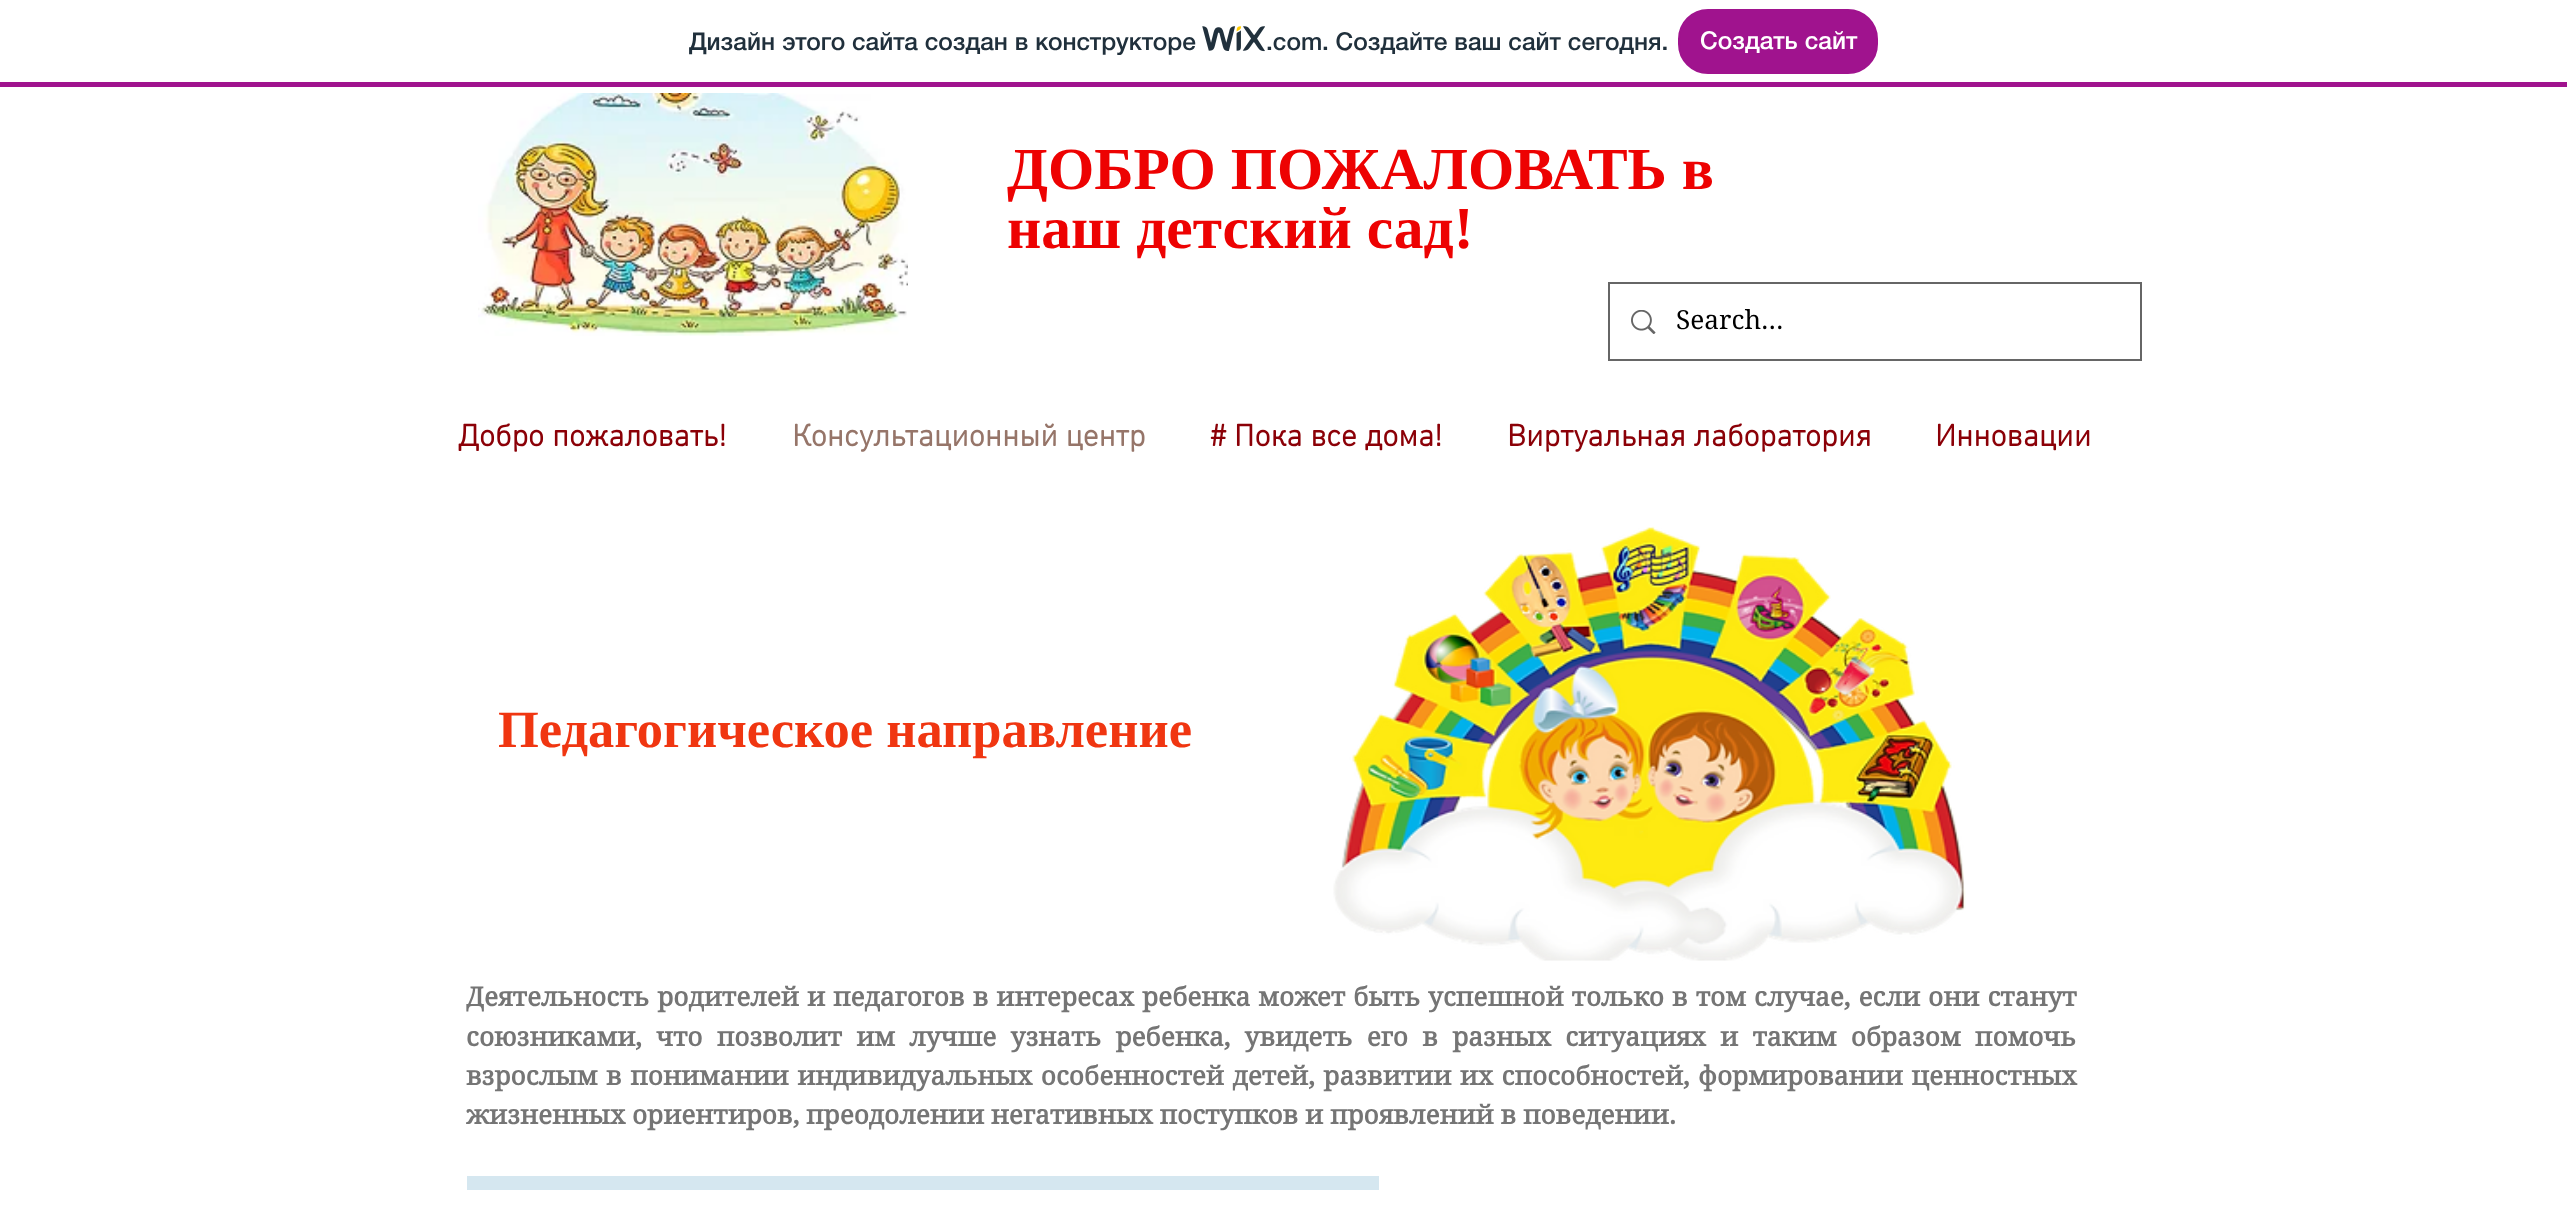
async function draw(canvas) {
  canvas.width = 2567
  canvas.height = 1229
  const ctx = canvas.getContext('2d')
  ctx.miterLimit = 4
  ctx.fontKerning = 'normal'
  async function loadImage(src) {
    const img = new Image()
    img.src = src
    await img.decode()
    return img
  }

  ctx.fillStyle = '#fff'
  ctx.fillRect(0, 0, 2567, 1229)
  ctx.fillStyle = '#a0138e'
  ctx.fillRect(0, 82, 2567, 5)
  ctx.font = '500 24.5px "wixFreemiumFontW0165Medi"'
  ctx.fillStyle = '#20303c'
  ctx.fillText('Дизайн этого сайта создан в конструкторе', 689, 50)
  ctx.drawImage(await loadImage('image0.png'), 1202, 26, 63, 26)
  ctx.font = '500 24.5px "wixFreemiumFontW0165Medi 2"'
  ctx.fillText('.com', 1266, 50)
  ctx.font = '500 24.5px "wixFreemiumFontW0165Medi"'
  ctx.fillText('. Создайте ваш сайт сегодня.', 1322, 50)
  ctx.fillStyle = '#a0138e'
  ctx.beginPath()
  ctx.roundRect(1679, 10, 198, 63, 29)
  ctx.fill()
  ctx.strokeStyle = '#a0138e'
  ctx.lineWidth = 2
  ctx.stroke()
  ctx.fillStyle = '#fff'
  ctx.fillText('Создать сайт', 1700, 49)
  ctx.drawImage(await loadImage('image1.png'), 478, 93, 430, 243)
  ctx.font = 'bold 59.5px Liberation Serif'
  ctx.fillStyle = '#ed0202'
  ctx.fillText('ДОБРО ПОЖАЛОВАТЬ в', 1007, 189)
  ctx.fillText('наш детский сад!', 1007, 248)
  ctx.strokeStyle = '#666'
  ctx.strokeRect(1609, 283, 532, 77)
  ctx.drawImage(await loadImage('image2.png'), 1631, 310, 25, 24)
  ctx.font = '26.25px "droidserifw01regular"'
  ctx.fillStyle = '#000'
  ctx.fillText('Search...', 1676, 329)
  ctx.font = 'bold 31.5px "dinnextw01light"'
  ctx.fillStyle = '#8b0007'
  ctx.fillText('Добро пожаловать!', 458, 446)
  ctx.fillStyle = '#967569'
  ctx.fillText('Консультационный центр', 792, 446)
  ctx.fillStyle = '#8b0007'
  ctx.fillText('# Пока все дома!', 1210, 446)
  ctx.fillText('Виртуальная лаборатория', 1507, 446)
  ctx.fillText('Инновации', 1935, 446)
  ctx.font = 'bold 52.5px Liberation Serif'
  ctx.fillStyle = '#f03611'
  ctx.fillText('Педагогическое направление', 498, 747)
  ctx.drawImage(await loadImage('image3.png'), 1333, 526, 633, 435)
  ctx.wordSpacing = '1.25px'
  ctx.font = 'bold 26.25px "droidserifw01regular"'
  ctx.fillStyle = '#757575'
  ctx.fillText('Деятельность родителей и педагогов в интересах ребенка может быть успешной только в том случае, если они станут', 466, 1006)
  ctx.wordSpacing = '7.5px'
  ctx.fillText('союзниками, что позволит им лучше узнать ребенка, увидеть его в разных ситуациях и таким образом помочь', 466, 1046)
  ctx.wordSpacing = '1.75px'
  ctx.fillText('взрослым в понимании индивидуальных особенностей детей, развитии их способностей, формировании ценностных', 466, 1085)
  ctx.wordSpacing = '0px'
  ctx.fillText('жизненных ориентиров, преодолении негативных поступков и проявлений в поведении.', 466, 1124)
  ctx.fillStyle = '#d5e7f0'
  ctx.fillRect(467, 1176, 912, 14)
}

draw(document.querySelector('canvas'))
